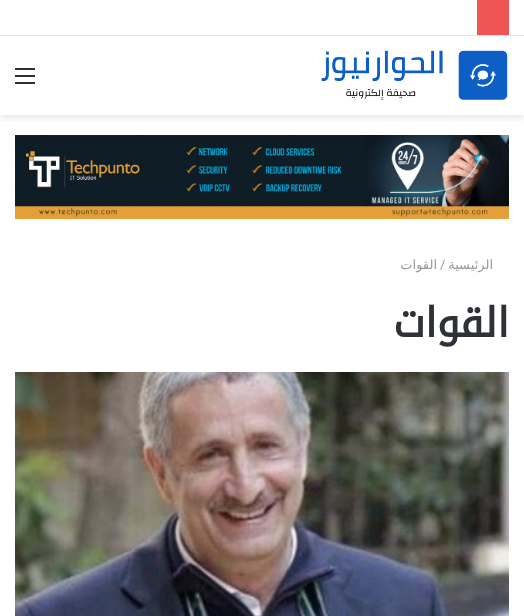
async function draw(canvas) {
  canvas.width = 524
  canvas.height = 616
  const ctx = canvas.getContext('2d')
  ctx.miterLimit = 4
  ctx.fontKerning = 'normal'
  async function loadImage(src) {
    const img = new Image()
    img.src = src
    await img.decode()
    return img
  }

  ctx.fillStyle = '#fff'
  ctx.fillRect(0, 0, 524, 616)
  ctx.save()
  ctx.beginPath()
  ctx.rect(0, 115, 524, 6)
  ctx.clip()
  ctx.fillStyle = '#0000001a'
  ctx.filter = 'blur(3.5px)'
  ctx.beginPath()
  ctx.rect(0, 39, 524, 79)
  ctx.fill()
  ctx.filter = 'none'
  ctx.restore()
  ctx.fillStyle = '#e6e6e6'
  ctx.fillRect(0, 35, 524, 1)
  ctx.fillStyle = '#f05555'
  ctx.fillRect(477, 0, 32, 35)
  ctx.drawImage(await loadImage('image0.png'), 321, 50, 187, 50)
  ctx.fillStyle = '#2c2f34'
  ctx.fillRect(15, 75, 20, 2)
  ctx.fillRect(15, 68, 20, 2)
  ctx.fillRect(15, 82, 20, 2)
  ctx.drawImage(await loadImage('image1.png'), 15, 135, 494, 84)
  ctx.direction = 'rtl'
  ctx.font = '13px DejaVu Sans'
  ctx.fillStyle = '#9a9a9a'
  ctx.fillText('الرئيسية', 493, 269)
  ctx.direction = 'ltr'
  ctx.font = '13px Roboto'
  ctx.fillText('/', 440, 269)
  ctx.direction = 'rtl'
  ctx.font = '13px DejaVu Sans'
  ctx.fillText('القوات', 437, 269)
  ctx.font = 'bold 41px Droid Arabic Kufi'
  ctx.fillStyle = '#2e3136'
  ctx.fillText('القوات', 509, 337)
  ctx.drawImage(await loadImage('image2.png'), 15, 372, 494, 244)
}

draw(document.querySelector('canvas'))
